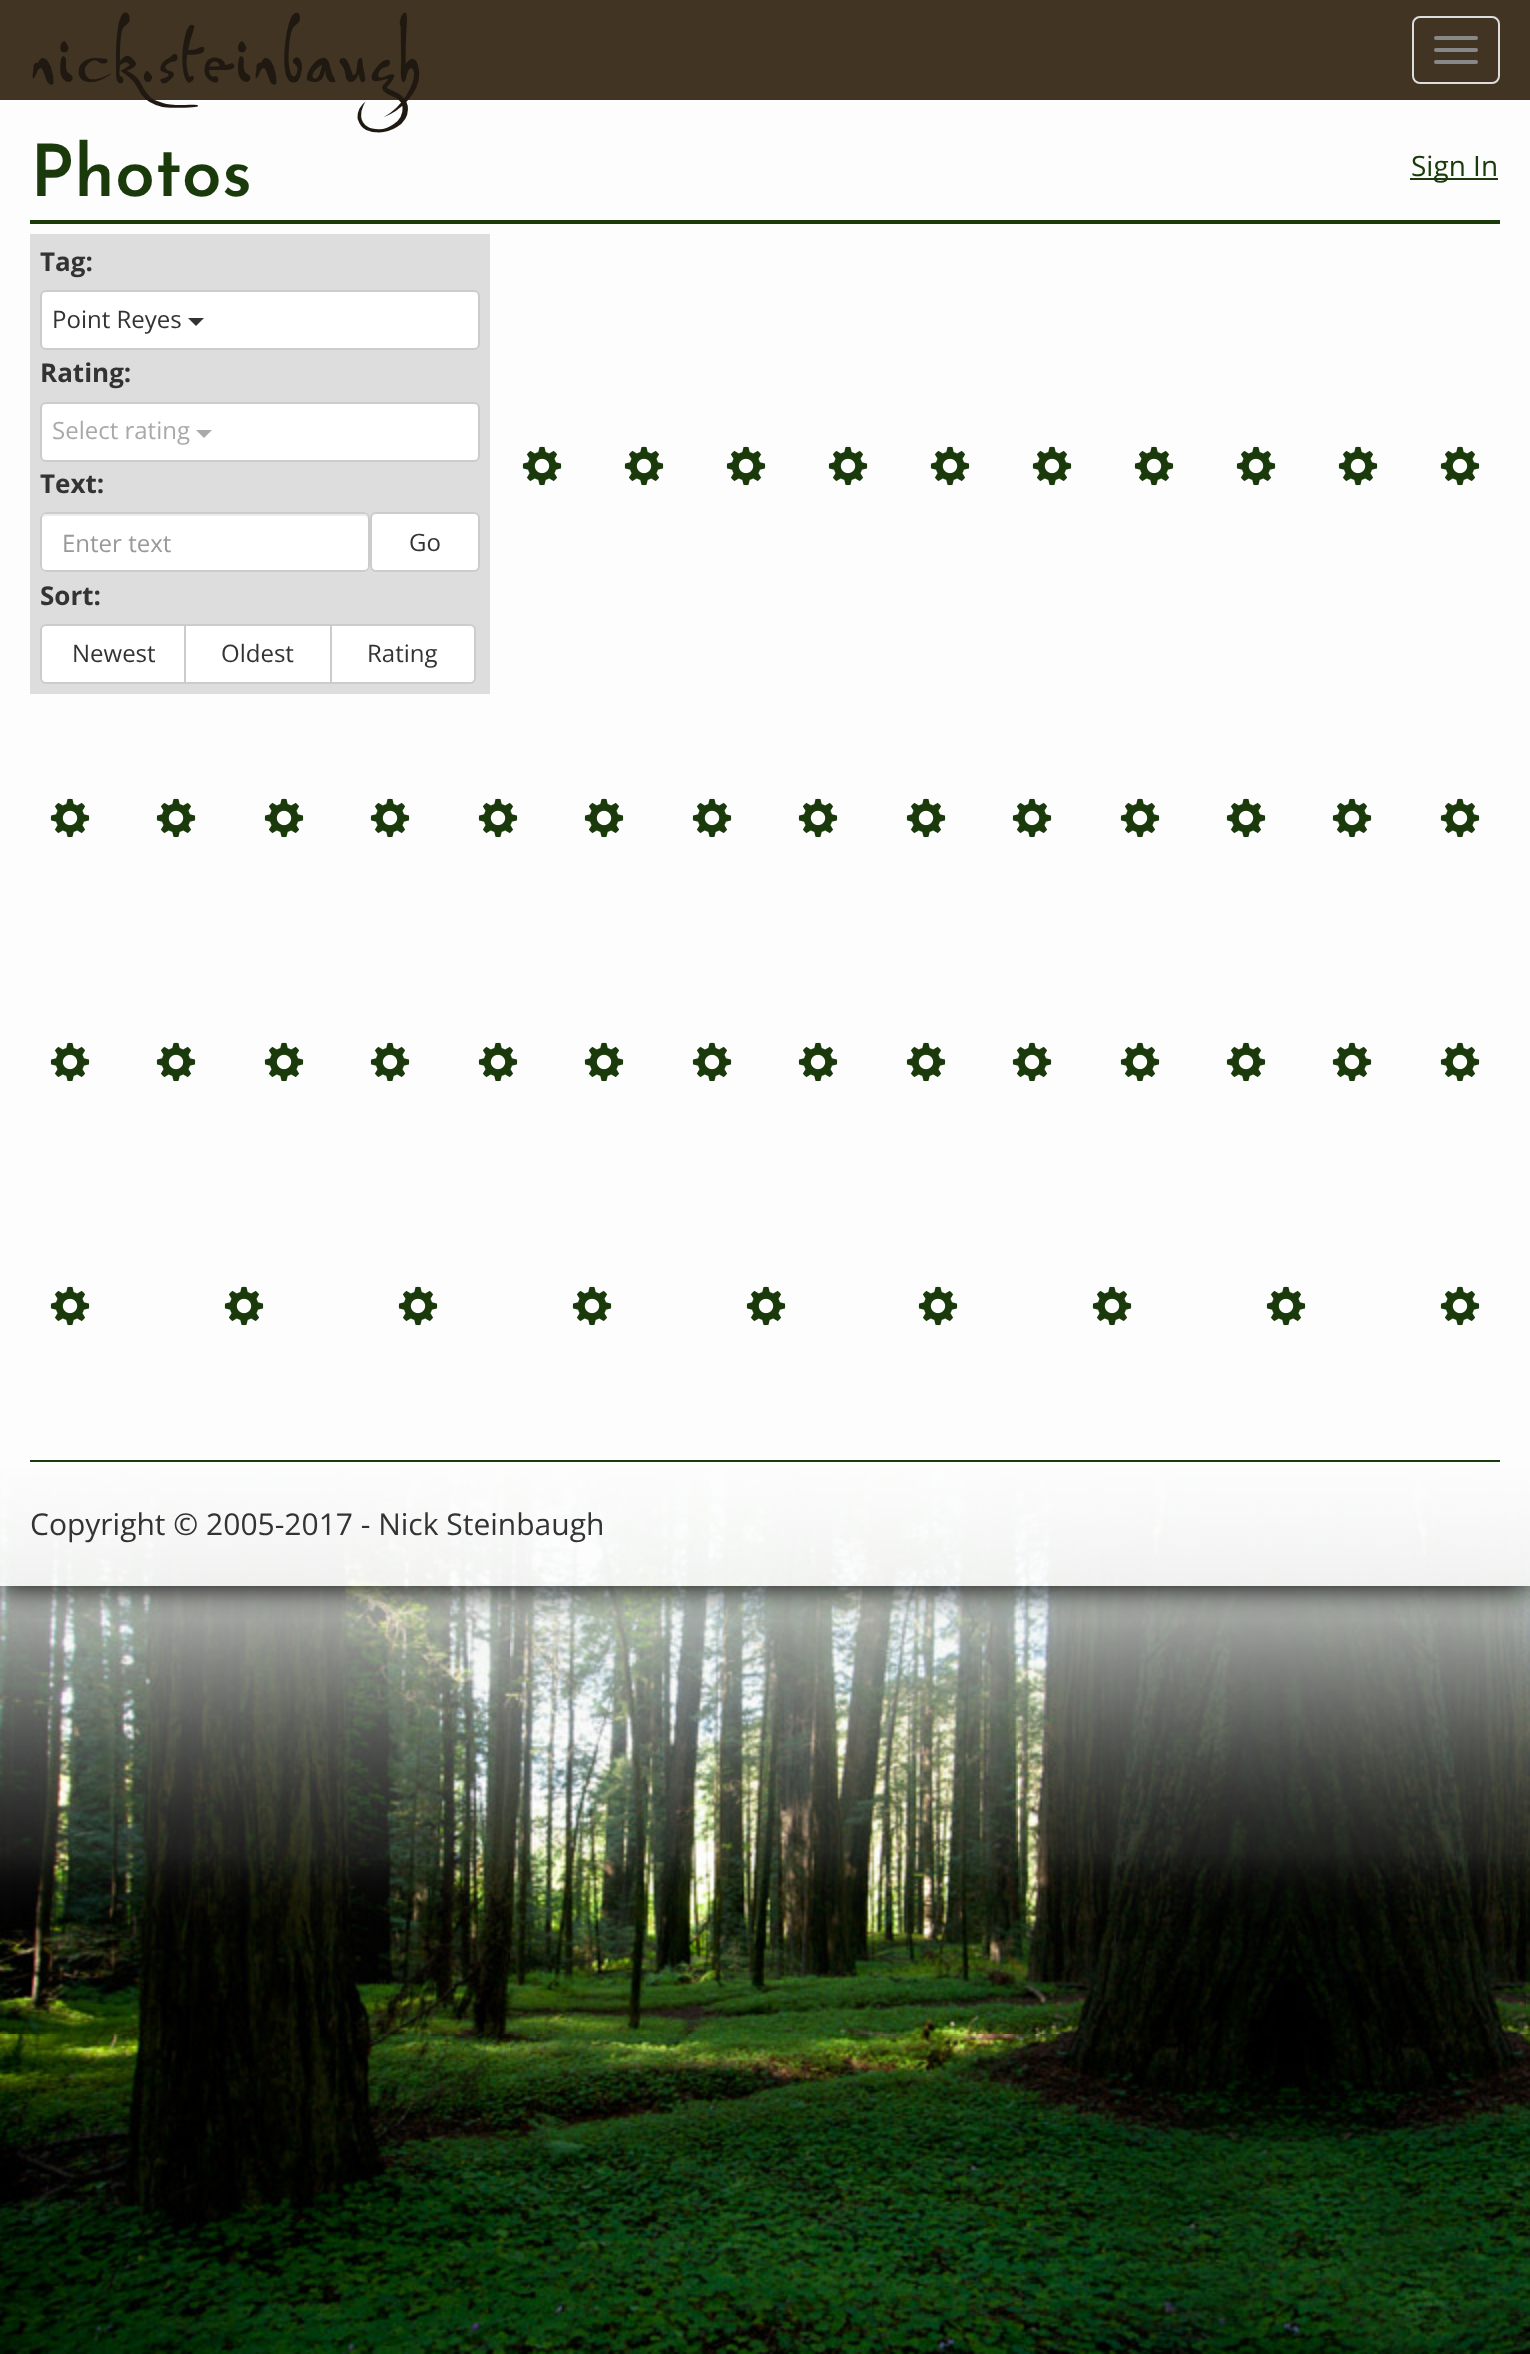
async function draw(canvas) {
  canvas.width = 1530
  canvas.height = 2354
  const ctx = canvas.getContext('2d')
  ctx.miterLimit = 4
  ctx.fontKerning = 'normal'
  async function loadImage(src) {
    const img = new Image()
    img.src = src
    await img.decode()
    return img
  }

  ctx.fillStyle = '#eef2ee'
  ctx.fillRect(0, 0, 1530, 2354)
  ctx.drawImage(await loadImage('image0.png'), 0, 1469, 1530, 885)
  ctx.save()
  ctx.beginPath()
  ctx.rect(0, 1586, 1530, 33)
  ctx.clip()
  ctx.fillStyle = '#000'
  ctx.filter = 'blur(15px)'
  ctx.beginPath()
  ctx.rect(-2, -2, 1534, 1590)
  ctx.fill()
  ctx.filter = 'none'
  ctx.restore()
  ctx.fillStyle = '#413423'
  ctx.fillRect(0, 0, 1530, 100)
  ctx.fillStyle = '#ffffffcc'
  ctx.fillRect(0, 100, 1530, 1486)
  ctx.font = '116px "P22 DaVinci"'
  ctx.fillStyle = '#201911'
  ctx.fillText('nick.steinbaugh', 30, 82)
  ctx.beginPath()
  ctx.roundRect(1413, 17, 86, 66, 7)
  ctx.strokeStyle = '#ddd'
  ctx.lineWidth = 2
  ctx.stroke()
  ctx.fillStyle = '#888'
  ctx.beginPath()
  ctx.roundRect(1434, 36, 44, 4, 2)
  ctx.fill()
  ctx.beginPath()
  ctx.roundRect(1434, 48, 44, 4, 2)
  ctx.fill()
  ctx.beginPath()
  ctx.roundRect(1434, 60, 44, 4, 2)
  ctx.fill()
  ctx.fillStyle = '#1a3a0b'
  ctx.fillRect(30, 220, 1470, 4)
  ctx.font = '600 72px Josefin Sans'
  ctx.fillText('Photos', 30, 196)
  ctx.fillStyle = '#dcdddc'
  ctx.fillRect(30, 234, 460, 460)
  ctx.font = 'bold 26px Open Sans'
  ctx.fillStyle = '#333'
  ctx.fillText('Tag:', 40, 271)
  ctx.fillStyle = '#fff'
  ctx.beginPath()
  ctx.roundRect(41, 291, 438, 58, 5)
  ctx.fill()
  ctx.strokeStyle = '#ccc'
  ctx.stroke()
  ctx.font = '24px Open Sans'
  ctx.fillStyle = '#333'
  ctx.fillText('Point Reyes', 52, 328)
  ctx.beginPath()
  ctx.moveTo(188, 318)
  ctx.lineTo(204, 318)
  ctx.lineTo(196, 326)
  ctx.closePath()
  ctx.fill()
  ctx.font = 'bold 26px Open Sans'
  ctx.fillText('Rating:', 40, 382)
  ctx.fillStyle = '#fff'
  ctx.beginPath()
  ctx.roundRect(41, 403, 438, 58, 5)
  ctx.fill()
  ctx.stroke()
  ctx.font = '24px Open Sans'
  ctx.fillStyle = '#a9a9a9'
  ctx.fillText('Select rating', 52, 439)
  ctx.beginPath()
  ctx.moveTo(196, 430)
  ctx.lineTo(212, 430)
  ctx.lineTo(204, 438)
  ctx.closePath()
  ctx.fill()
  ctx.font = 'bold 26px Open Sans'
  ctx.fillStyle = '#333'
  ctx.fillText('Text:', 40, 493)
  ctx.fillStyle = '#fff'
  ctx.beginPath()
  ctx.roundRect(40, 512, 330, 60, 6)
  ctx.fill()
  ctx.fillStyle = '#ececec'
  ctx.beginPath()
  ctx.moveTo(46, 516)
  ctx.lineTo(364, 516)
  ctx.bezierCurveTo(366, 516, 368, 518, 368, 520)
  ctx.bezierCurveTo(368, 517, 368, 514, 364, 514)
  ctx.lineTo(46, 514)
  ctx.bezierCurveTo(42, 514, 42, 517, 42, 520)
  ctx.bezierCurveTo(42, 518, 44, 516, 46, 516)
  ctx.closePath()
  ctx.fill()
  ctx.beginPath()
  ctx.roundRect(41, 513, 328, 58, 5)
  ctx.stroke()
  ctx.font = '24px Open Sans'
  ctx.fillStyle = '#999'
  ctx.fillText('Enter text', 62, 552)
  ctx.fillStyle = '#fff'
  ctx.beginPath()
  ctx.roundRect(371, 513, 108, 58, 5)
  ctx.fill()
  ctx.stroke()
  ctx.fillStyle = '#333'
  ctx.fillText('Go', 409, 551)
  ctx.font = 'bold 26px Open Sans'
  ctx.fillText('Sort:', 40, 605)
  ctx.fillStyle = '#fff'
  ctx.beginPath()
  ctx.roundRect(41, 625, 144, 58, [5, 0, 0, 5])
  ctx.fill()
  ctx.stroke()
  ctx.font = '24px Open Sans'
  ctx.fillStyle = '#333'
  ctx.fillText('Newest', 72, 662)
  ctx.fillStyle = '#fff'
  ctx.beginPath()
  ctx.rect(185, 625, 146, 58)
  ctx.fill()
  ctx.stroke()
  ctx.fillStyle = '#333'
  ctx.fillText('Oldest', 221, 662)
  ctx.fillStyle = '#fff'
  ctx.beginPath()
  ctx.roundRect(331, 625, 144, 58, [0, 5, 5, 0])
  ctx.fill()
  ctx.stroke()
  ctx.fillStyle = '#333'
  ctx.fillText('Rating', 367, 662)
  ctx.drawImage(await loadImage('image1.png'), 522, 446, 40, 40)
  ctx.drawImage(await loadImage('image1.png'), 624, 446, 40, 40)
  ctx.drawImage(await loadImage('image1.png'), 726, 446, 40, 40)
  ctx.drawImage(await loadImage('image1.png'), 828, 446, 40, 40)
  ctx.drawImage(await loadImage('image1.png'), 930, 446, 40, 40)
  ctx.drawImage(await loadImage('image1.png'), 1032, 446, 40, 40)
  ctx.drawImage(await loadImage('image1.png'), 1134, 446, 40, 40)
  ctx.drawImage(await loadImage('image1.png'), 1236, 446, 40, 40)
  ctx.drawImage(await loadImage('image1.png'), 1338, 446, 40, 40)
  ctx.drawImage(await loadImage('image1.png'), 1440, 446, 40, 40)
  ctx.drawImage(await loadImage('image1.png'), 50, 798, 40, 40)
  ctx.drawImage(await loadImage('image1.png'), 156, 798, 40, 40)
  ctx.drawImage(await loadImage('image1.png'), 264, 798, 40, 40)
  ctx.drawImage(await loadImage('image1.png'), 370, 798, 40, 40)
  ctx.drawImage(await loadImage('image1.png'), 478, 798, 40, 40)
  ctx.drawImage(await loadImage('image1.png'), 584, 798, 40, 40)
  ctx.drawImage(await loadImage('image1.png'), 692, 798, 40, 40)
  ctx.drawImage(await loadImage('image1.png'), 798, 798, 40, 40)
  ctx.drawImage(await loadImage('image1.png'), 906, 798, 40, 40)
  ctx.drawImage(await loadImage('image1.png'), 1012, 798, 40, 40)
  ctx.drawImage(await loadImage('image1.png'), 1120, 798, 40, 40)
  ctx.drawImage(await loadImage('image1.png'), 1226, 798, 40, 40)
  ctx.drawImage(await loadImage('image1.png'), 1332, 798, 40, 40)
  ctx.drawImage(await loadImage('image1.png'), 1440, 798, 40, 40)
  ctx.drawImage(await loadImage('image1.png'), 50, 1042, 40, 40)
  ctx.drawImage(await loadImage('image1.png'), 156, 1042, 40, 40)
  ctx.drawImage(await loadImage('image1.png'), 264, 1042, 40, 40)
  ctx.drawImage(await loadImage('image1.png'), 370, 1042, 40, 40)
  ctx.drawImage(await loadImage('image1.png'), 478, 1042, 40, 40)
  ctx.drawImage(await loadImage('image1.png'), 584, 1042, 40, 40)
  ctx.drawImage(await loadImage('image1.png'), 692, 1042, 40, 40)
  ctx.drawImage(await loadImage('image1.png'), 798, 1042, 40, 40)
  ctx.drawImage(await loadImage('image1.png'), 906, 1042, 40, 40)
  ctx.drawImage(await loadImage('image1.png'), 1012, 1042, 40, 40)
  ctx.drawImage(await loadImage('image1.png'), 1120, 1042, 40, 40)
  ctx.drawImage(await loadImage('image1.png'), 1226, 1042, 40, 40)
  ctx.drawImage(await loadImage('image1.png'), 1332, 1042, 40, 40)
  ctx.drawImage(await loadImage('image1.png'), 1440, 1042, 40, 40)
  ctx.drawImage(await loadImage('image1.png'), 50, 1286, 40, 40)
  ctx.drawImage(await loadImage('image1.png'), 224, 1286, 40, 40)
  ctx.drawImage(await loadImage('image1.png'), 398, 1286, 40, 40)
  ctx.drawImage(await loadImage('image1.png'), 572, 1286, 40, 40)
  ctx.drawImage(await loadImage('image1.png'), 746, 1286, 40, 40)
  ctx.drawImage(await loadImage('image1.png'), 918, 1286, 40, 40)
  ctx.drawImage(await loadImage('image1.png'), 1092, 1286, 40, 40)
  ctx.drawImage(await loadImage('image1.png'), 1266, 1286, 40, 40)
  ctx.drawImage(await loadImage('image1.png'), 1440, 1286, 40, 40)
  ctx.fillStyle = '#1a3a0b'
  ctx.fillRect(1410, 178, 88, 2)
  ctx.font = '28px Open Sans'
  ctx.fillText('Sign In', 1411, 176)
  ctx.fillRect(30, 1460, 1470, 2)
  ctx.font = '30px Open Sans'
  ctx.fillStyle = '#333'
  ctx.fillText('Copyright © 2005-2017 - Nick Steinbaugh', 30, 1535)
}

draw(document.querySelector('canvas'))
